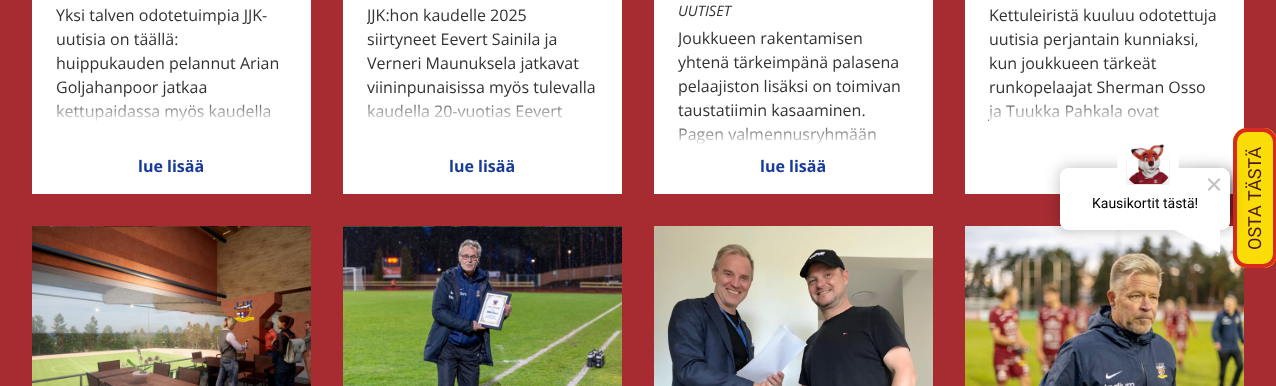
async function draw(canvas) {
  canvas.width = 1276
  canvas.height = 386
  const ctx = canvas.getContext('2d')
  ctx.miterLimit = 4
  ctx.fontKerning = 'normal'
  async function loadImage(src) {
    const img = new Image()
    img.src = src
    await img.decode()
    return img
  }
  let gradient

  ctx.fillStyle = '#a72c32'
  ctx.fillRect(0, 0, 1276, 386)
  ctx.fillStyle = '#fff'
  ctx.fillRect(32, 0, 279, 194)
  ctx.font = '16px Open Sans'
  ctx.fillStyle = '#333'
  ctx.fillText('Yksi talven odotetuimpia JJK-', 56, 21)
  ctx.fillText('uutisia on täällä:', 56, 45)
  ctx.fillText('huippukauden pelannut Arian', 56, 69)
  ctx.fillText('Goljahanpoor jatkaa', 56, 93)
  ctx.fillText('kettupaidassa myös kaudella', 56, 117)
  gradient = ctx.createLinearGradient(172, 99, 172, 123)
  gradient.addColorStop(0, '#ffffff00')
  gradient.addColorStop(1, '#fff')
  ctx.fillStyle = gradient
  ctx.fillRect(57, 104, 214, 17)
  ctx.font = 'bold 16px Open Sans'
  ctx.fillStyle = '#163a98'
  ctx.fillText('lue lisää', 138, 172)
  ctx.fillStyle = '#fff'
  ctx.fillRect(343, 0, 279, 194)
  ctx.save()
  ctx.beginPath()
  ctx.rect(367, 3, 231, 120)
  ctx.clip()
  ctx.font = '16px Open Sans'
  ctx.fillStyle = '#333'
  ctx.fillText('JJK:hon kaudelle 2025', 367, 21)
  ctx.restore()
  ctx.font = '16px Open Sans'
  ctx.fillStyle = '#333'
  ctx.fillText('siirtyneet Eevert Sainila ja', 367, 45)
  ctx.fillText('Verneri Maunuksela jatkavat', 367, 69)
  ctx.fillText('viininpunaisissa myös tulevalla', 367, 93)
  ctx.fillText('kaudella 20-vuotias Eevert', 367, 117)
  gradient = ctx.createLinearGradient(483, 99, 483, 123)
  gradient.addColorStop(0, '#ffffff00')
  gradient.addColorStop(1, '#fff')
  ctx.fillStyle = gradient
  ctx.fillRect(368, 104, 195, 14)
  ctx.font = 'bold 16px Open Sans'
  ctx.fillStyle = '#163a98'
  ctx.fillText('lue lisää', 449, 172)
  ctx.fillStyle = '#fff'
  ctx.fillRect(654, 0, 279, 194)
  ctx.font = 'italic 14.5px Open Sans'
  ctx.fillStyle = '#333'
  ctx.fillText('UUTISET', 678, 16)
  ctx.save()
  ctx.beginPath()
  ctx.rect(678, 26, 231, 120)
  ctx.clip()
  ctx.font = '16px Open Sans'
  ctx.fillText('Joukkueen rakentamisen', 678, 44)
  ctx.restore()
  ctx.font = '16px Open Sans'
  ctx.fillText('yhtenä tärkeimpänä palasena', 678, 68)
  ctx.fillText('pelaajiston lisäksi on toimivan', 678, 92)
  ctx.fillText('taustatiimin kasaaminen.', 678, 116)
  ctx.fillText('Pagen valmennusryhmään', 678, 140)
  gradient = ctx.createLinearGradient(794, 122, 794, 146)
  gradient.addColorStop(0, '#ffffff00')
  gradient.addColorStop(1, '#fff')
  ctx.fillStyle = gradient
  ctx.fillRect(679, 127, 197, 17)
  ctx.font = 'bold 16px Open Sans'
  ctx.fillStyle = '#163a98'
  ctx.fillText('lue lisää', 760, 172)
  ctx.fillStyle = '#fff'
  ctx.fillRect(965, 0, 279, 194)
  ctx.font = '16px Open Sans'
  ctx.fillStyle = '#333'
  ctx.fillText('Kettuleiristä kuuluu odotettuja', 989, 21)
  ctx.fillText('uutisia perjantain kunniaksi,', 989, 45)
  ctx.fillText('kun joukkueen tärkeät', 989, 69)
  ctx.fillText('runkopelaajat Sherman Osso', 989, 93)
  ctx.fillText('ja Tuukka Pahkala ovat', 989, 117)
  gradient = ctx.createLinearGradient(1105, 99, 1105, 123)
  gradient.addColorStop(0, '#ffffff00')
  gradient.addColorStop(1, '#fff')
  ctx.fillStyle = gradient
  ctx.fillRect(989, 104, 170, 17)
  ctx.drawImage(await loadImage('image0.png'), 32, 226, 279, 160)
  ctx.drawImage(await loadImage('image1.png'), 343, 226, 279, 160)
  ctx.drawImage(await loadImage('image2.png'), 654, 226, 279, 160)
  ctx.drawImage(await loadImage('image3.png'), 965, 226, 279, 160)
  ctx.fillStyle = '#00000059'
  ctx.filter = 'blur(7.5px)'
  ctx.beginPath()
  ctx.roundRect(1185, 176, 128, 44, 14)
  ctx.fill()
  ctx.filter = 'none'
  ctx.fillStyle = '#fadc08'
  ctx.beginPath()
  ctx.moveTo(1233, 254)
  ctx.lineTo(1233, 142)
  ctx.bezierCurveTo(1233, 134, 1239, 128, 1247, 128)
  ctx.lineTo(1263, 128)
  ctx.bezierCurveTo(1271, 128, 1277, 134, 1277, 142)
  ctx.lineTo(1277, 254)
  ctx.bezierCurveTo(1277, 262, 1271, 268, 1263, 268)
  ctx.lineTo(1247, 268)
  ctx.bezierCurveTo(1239, 268, 1233, 262, 1233, 254)
  ctx.closePath()
  ctx.fill()
  ctx.beginPath()
  ctx.moveTo(1235, 254)
  ctx.lineTo(1235, 142)
  ctx.bezierCurveTo(1235, 135.5, 1240.5, 130, 1247, 130)
  ctx.lineTo(1263, 130)
  ctx.bezierCurveTo(1269.5, 130, 1275, 135.5, 1275, 142)
  ctx.lineTo(1275, 254)
  ctx.bezierCurveTo(1275, 260.5, 1269.5, 266, 1263, 266)
  ctx.lineTo(1247, 266)
  ctx.bezierCurveTo(1240.5, 266, 1235, 260.5, 1235, 254)
  ctx.closePath()
  ctx.strokeStyle = '#d62b1e'
  ctx.lineWidth = 4
  ctx.stroke()
  ctx.fillStyle = '#00000040'
  ctx.filter = 'blur(7.5px)'
  ctx.beginPath()
  ctx.roundRect(1060, 168, 170, 62, 8)
  ctx.fill()
  ctx.filter = 'none'
  ctx.fillStyle = '#fff'
  ctx.beginPath()
  ctx.roundRect(1060.5, 168.5, 169, 61, 7.5)
  ctx.fill()
  ctx.strokeStyle = '#fff'
  ctx.lineWidth = 1
  ctx.stroke()
  ctx.beginPath()
  ctx.arc(1148, 163, 28, 0, 2 * Math.PI)
  ctx.fill()
  ctx.lineWidth = 6
  ctx.stroke()
  ctx.drawImage(await loadImage('image4.png'), 1126, 144, 44, 41)
  ctx.fillStyle = '#c2c2c2'
  ctx.beginPath()
  ctx.moveTo(1219, 178)
  ctx.lineTo(1220.5, 179.5)
  ctx.lineTo(1209, 191)
  ctx.lineTo(1207.5, 189.5)
  ctx.closePath()
  ctx.fill()
  ctx.beginPath()
  ctx.moveTo(1207.5, 179.5)
  ctx.lineTo(1209, 178)
  ctx.lineTo(1220.5, 189.5)
  ctx.lineTo(1219, 191)
  ctx.closePath()
  ctx.fill()
  ctx.font = '14px Roboto'
  ctx.fillStyle = '#000'
  ctx.fillText('Kausikortit tästä!', 1092, 208)
  ctx.fillStyle = '#fff'
  ctx.beginPath()
  ctx.moveTo(1170, 228)
  ctx.lineTo(1220, 204)
  ctx.lineTo(1220, 253)
  ctx.closePath()
  ctx.fill()
  ctx.font = '18px Roboto'
  ctx.fillStyle = '#4d191e'
  ctx.save()
  ctx.translate(1261, 250)
  ctx.rotate(-90 * Math.PI / 180)
  ctx.fillText('OSTA TÄSTÄ', 0, 0)
  ctx.restore()
}

draw(document.querySelector('canvas'))
